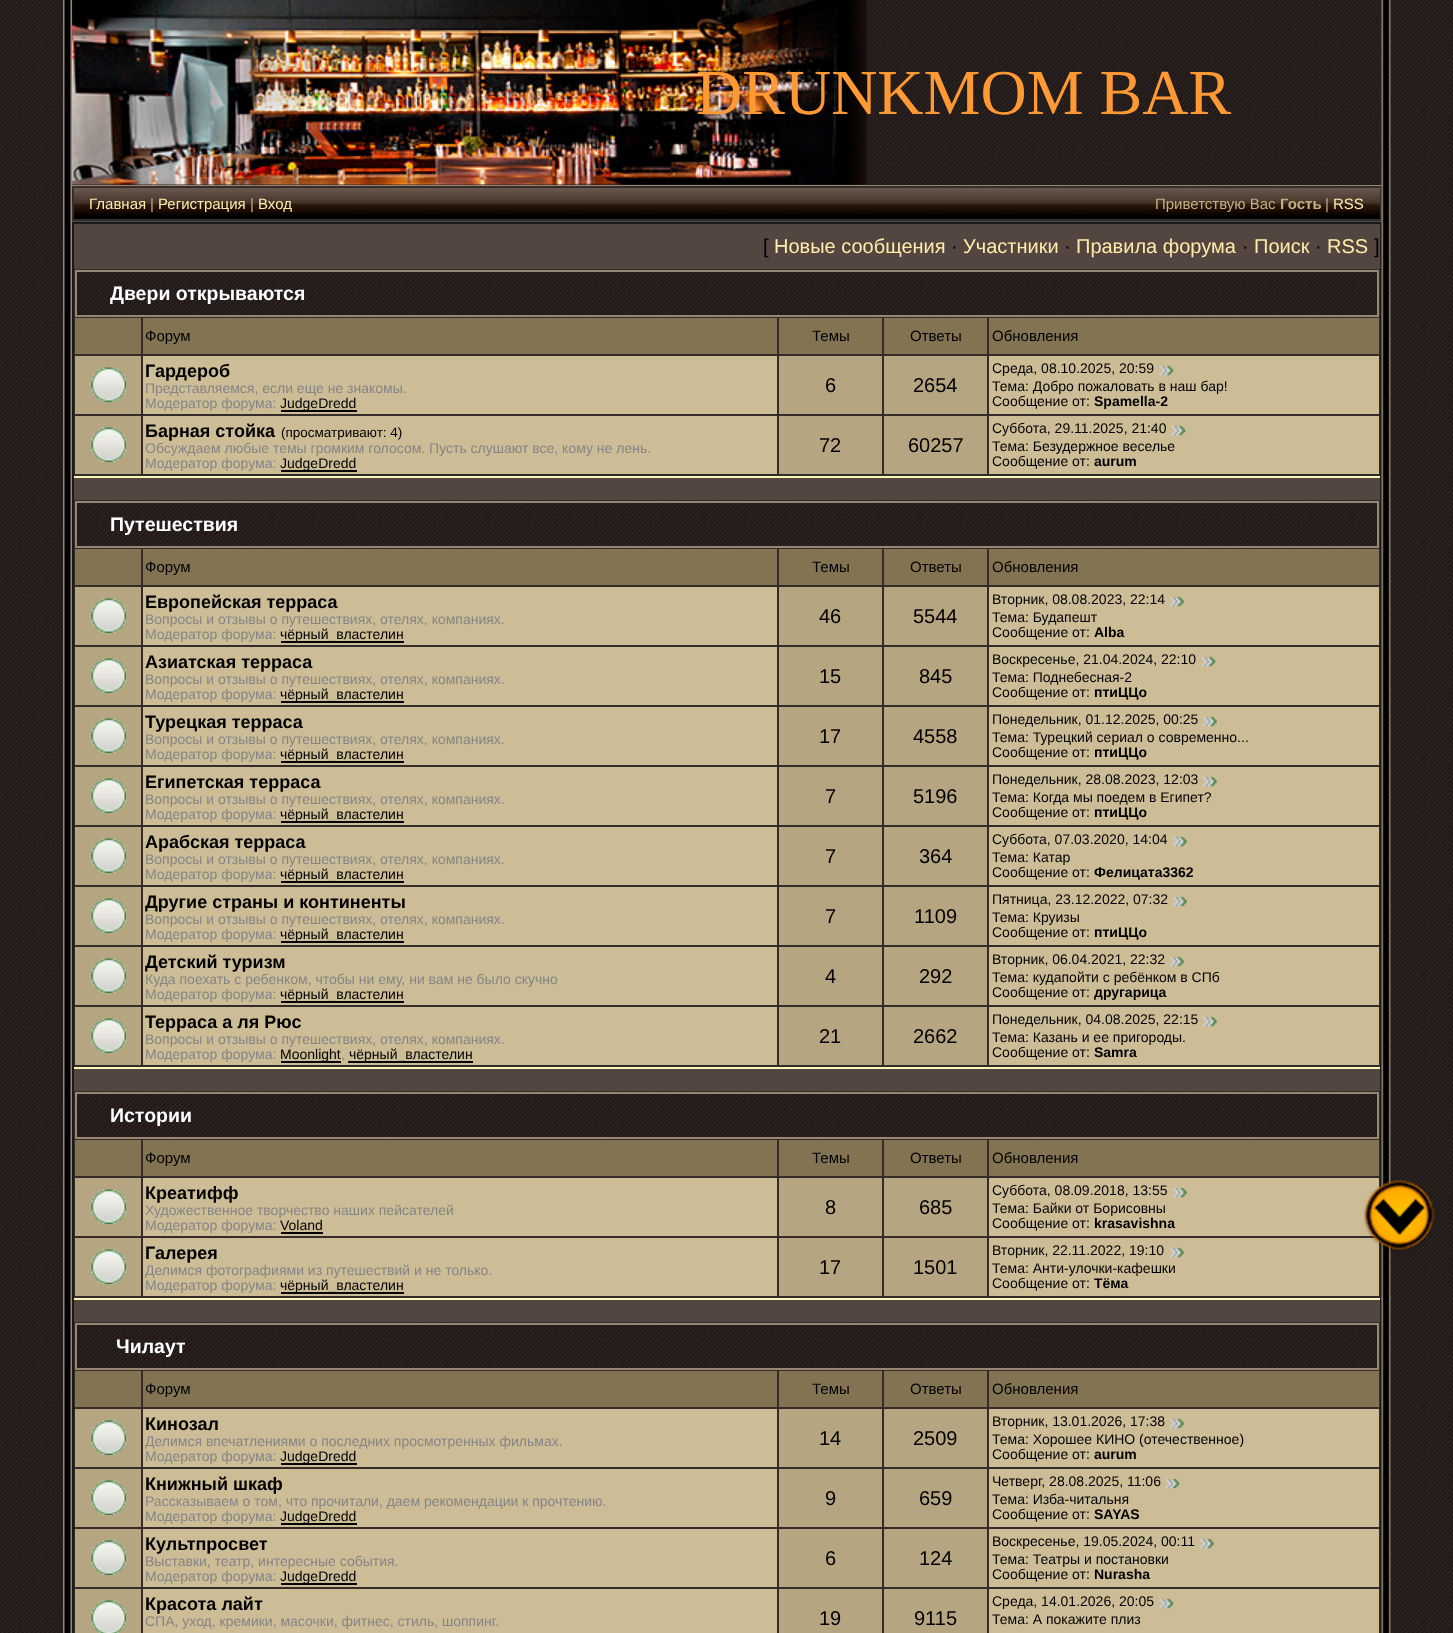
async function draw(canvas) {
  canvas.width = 1453
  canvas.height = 1633
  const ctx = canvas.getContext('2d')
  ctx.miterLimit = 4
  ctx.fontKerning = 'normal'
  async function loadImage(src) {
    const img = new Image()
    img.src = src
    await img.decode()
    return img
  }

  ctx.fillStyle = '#fff'
  ctx.fillRect(0, 0, 1453, 1633)
  ctx.drawImage(await loadImage('image0.png'), 0, 0, 1453, 1633)
  ctx.drawImage(await loadImage('image1.png'), 63, 0, 9, 1633)
  ctx.fillStyle = '#988675'
  ctx.fillRect(72, 185, 1310, 1)
  ctx.drawImage(await loadImage('image2.png'), 72, 0, 795, 185)
  ctx.font = '64px Liberation Serif'
  ctx.fillStyle = '#f93'
  ctx.fillText('DRUNKMOM BAR', 696, 114)
  ctx.drawImage(await loadImage('image3.png'), 74, 188, 1306, 31)
  ctx.strokeStyle = '#352e2c'
  ctx.lineWidth = 2
  ctx.strokeRect(73, 187, 1308, 33)
  ctx.font = '15px Liberation Sans'
  ctx.fillStyle = '#ffecab'
  ctx.fillText('Главная', 89, 209)
  ctx.fillStyle = '#c0b281'
  ctx.fillText('|', 150, 209)
  ctx.fillStyle = '#ffecab'
  ctx.fillText('Регистрация', 158, 209)
  ctx.fillStyle = '#c0b281'
  ctx.fillText('|', 250, 209)
  ctx.fillStyle = '#ffecab'
  ctx.fillText('Вход', 258, 209)
  ctx.fillStyle = '#c0b281'
  ctx.fillText('Приветствую Вас', 1155, 209)
  ctx.font = 'bold 15px Liberation Sans'
  ctx.fillText('Гость', 1280, 209)
  ctx.font = '15px Liberation Sans'
  ctx.fillText('|', 1325, 209)
  ctx.fillStyle = '#ffecab'
  ctx.fillText('RSS', 1333, 209)
  ctx.fillStyle = '#494949'
  ctx.fillRect(72, 221, 1310, 1)
  ctx.fillStyle = '#534640'
  ctx.fillRect(74, 224, 1306, 1098)
  ctx.strokeStyle = '#1a1a1a'
  ctx.strokeRect(73, 223, 1308, 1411)
  ctx.font = '20px Liberation Sans'
  ctx.fillStyle = '#000'
  ctx.fillText('[', 763, 253)
  ctx.fillStyle = '#ffecab'
  ctx.fillText('Новые сообщения', 774, 253)
  ctx.fillStyle = '#000'
  ctx.fillText('·', 951, 253)
  ctx.fillStyle = '#ffecab'
  ctx.fillText('Участники', 963, 253)
  ctx.fillStyle = '#000'
  ctx.fillText('·', 1064, 253)
  ctx.fillStyle = '#ffecab'
  ctx.fillText('Правила форума', 1076, 253)
  ctx.fillStyle = '#000'
  ctx.fillText('·', 1242, 253)
  ctx.fillStyle = '#ffecab'
  ctx.fillText('Поиск', 1254, 253)
  ctx.fillStyle = '#000'
  ctx.fillText('·', 1315, 253)
  ctx.fillStyle = '#ffecab'
  ctx.fillText('RSS', 1327, 253)
  ctx.fillStyle = '#000'
  ctx.fillText(']', 1374, 253)
  ctx.fillStyle = '#342c28'
  ctx.fillRect(74, 269, 1306, 207)
  ctx.fillStyle = '#f7f8b7'
  ctx.fillRect(74, 476, 1306, 2)
  ctx.drawImage(await loadImage('image4.png'), 77, 272, 1300, 43)
  ctx.strokeStyle = '#988675'
  ctx.strokeRect(76, 271, 1302, 45)
  ctx.font = 'bold 19.5px Liberation Sans'
  ctx.fillStyle = '#fff'
  ctx.fillText('Двери открываются', 110, 300)
  ctx.fillStyle = '#827452'
  ctx.fillRect(75, 318, 66, 36)
  ctx.fillRect(143, 318, 634, 36)
  ctx.font = '15px Liberation Sans'
  ctx.fillStyle = '#000'
  ctx.fillText('Форум', 145, 341)
  ctx.fillStyle = '#827452'
  ctx.fillRect(779, 318, 103, 36)
  ctx.fillStyle = '#000'
  ctx.fillText('Темы', 812, 341)
  ctx.fillStyle = '#827452'
  ctx.fillRect(884, 318, 103, 36)
  ctx.fillStyle = '#000'
  ctx.fillText('Ответы', 910, 341)
  ctx.fillStyle = '#827452'
  ctx.fillRect(989, 318, 390, 36)
  ctx.fillStyle = '#000'
  ctx.fillText('Обновления', 992, 341)
  ctx.fillStyle = '#b6a581'
  ctx.fillRect(75, 356, 66, 58)
  ctx.drawImage(await loadImage('image5.png'), 91, 367, 35, 35)
  ctx.fillStyle = '#cdbd97'
  ctx.fillRect(143, 356, 634, 58)
  ctx.font = 'bold 18px Liberation Sans'
  ctx.fillStyle = '#000'
  ctx.fillText('Гардероб', 145, 377)
  ctx.font = '14px Liberation Sans'
  ctx.fillStyle = '#858585'
  ctx.fillText('Представляемся, если еще не знакомы.', 145, 393)
  ctx.fillText('Модератор форума:', 145, 408)
  ctx.fillStyle = '#000'
  ctx.fillRect(281, 410, 76, 2)
  ctx.fillText('JudgeDredd', 280, 408)
  ctx.fillStyle = '#b6a581'
  ctx.fillRect(779, 356, 103, 58)
  ctx.font = '20px Liberation Sans'
  ctx.fillStyle = '#000'
  ctx.fillText('6', 825, 392)
  ctx.fillStyle = '#b6a581'
  ctx.fillRect(884, 356, 103, 58)
  ctx.fillStyle = '#000'
  ctx.fillText('2654', 913, 392)
  ctx.fillStyle = '#cdbd97'
  ctx.fillRect(989, 356, 390, 58)
  ctx.font = '14px Liberation Sans'
  ctx.fillStyle = '#000'
  ctx.fillText('Среда, 08.10.2025, 20:59', 992, 373)
  ctx.drawImage(await loadImage('image6.png'), 1159, 365, 15, 11)
  ctx.fillText('Тема: Добро пожаловать в наш бар!', 992, 391)
  ctx.fillText('Сообщение от:', 992, 406)
  ctx.font = 'bold 14px Liberation Sans'
  ctx.fillText('Spamella-2', 1094, 406)
  ctx.fillStyle = '#b6a581'
  ctx.fillRect(75, 416, 66, 58)
  ctx.drawImage(await loadImage('image5.png'), 91, 427, 35, 35)
  ctx.fillStyle = '#cdbd97'
  ctx.fillRect(143, 416, 634, 58)
  ctx.font = 'bold 18px Liberation Sans'
  ctx.fillStyle = '#000'
  ctx.fillText('Барная стойка', 145, 437)
  ctx.font = '13.5px Liberation Sans'
  ctx.fillText('(просматривают: 4)', 281, 437)
  ctx.font = '14px Liberation Sans'
  ctx.fillStyle = '#858585'
  ctx.fillText('Обсуждаем любые темы громким голосом. Пусть слушают все, кому не лень.', 145, 453)
  ctx.fillText('Модератор форума:', 145, 468)
  ctx.fillStyle = '#000'
  ctx.fillRect(281, 470, 76, 2)
  ctx.fillText('JudgeDredd', 280, 468)
  ctx.fillStyle = '#b6a581'
  ctx.fillRect(779, 416, 103, 58)
  ctx.font = '20px Liberation Sans'
  ctx.fillStyle = '#000'
  ctx.fillText('72', 819, 452)
  ctx.fillStyle = '#b6a581'
  ctx.fillRect(884, 416, 103, 58)
  ctx.fillStyle = '#000'
  ctx.fillText('60257', 908, 452)
  ctx.fillStyle = '#cdbd97'
  ctx.fillRect(989, 416, 390, 58)
  ctx.font = '14px Liberation Sans'
  ctx.fillStyle = '#000'
  ctx.fillText('Суббота, 29.11.2025, 21:40', 992, 433)
  ctx.drawImage(await loadImage('image6.png'), 1171, 425, 15, 11)
  ctx.fillText('Тема: Безудержное веселье', 992, 451)
  ctx.fillText('Сообщение от:', 992, 466)
  ctx.font = 'bold 14px Liberation Sans'
  ctx.fillText('аurum', 1094, 466)
  ctx.fillStyle = '#342c28'
  ctx.fillRect(74, 500, 1306, 567)
  ctx.fillStyle = '#f7f8b7'
  ctx.fillRect(74, 1067, 1306, 2)
  ctx.drawImage(await loadImage('image4.png'), 77, 503, 1300, 43)
  ctx.strokeRect(76, 502, 1302, 45)
  ctx.font = 'bold 19.5px Liberation Sans'
  ctx.fillStyle = '#fff'
  ctx.fillText('Путешествия', 110, 531)
  ctx.fillStyle = '#827452'
  ctx.fillRect(75, 549, 66, 36)
  ctx.fillRect(143, 549, 634, 36)
  ctx.font = '15px Liberation Sans'
  ctx.fillStyle = '#000'
  ctx.fillText('Форум', 145, 572)
  ctx.fillStyle = '#827452'
  ctx.fillRect(779, 549, 103, 36)
  ctx.fillStyle = '#000'
  ctx.fillText('Темы', 812, 572)
  ctx.fillStyle = '#827452'
  ctx.fillRect(884, 549, 103, 36)
  ctx.fillStyle = '#000'
  ctx.fillText('Ответы', 910, 572)
  ctx.fillStyle = '#827452'
  ctx.fillRect(989, 549, 390, 36)
  ctx.fillStyle = '#000'
  ctx.fillText('Обновления', 992, 572)
  ctx.fillStyle = '#b6a581'
  ctx.fillRect(75, 587, 66, 58)
  ctx.drawImage(await loadImage('image5.png'), 91, 598, 35, 35)
  ctx.fillStyle = '#cdbd97'
  ctx.fillRect(143, 587, 634, 58)
  ctx.font = 'bold 18px Liberation Sans'
  ctx.fillStyle = '#000'
  ctx.fillText('Европейская терраса', 145, 608)
  ctx.font = '14px Liberation Sans'
  ctx.fillStyle = '#858585'
  ctx.fillText('Вопросы и отзывы о путешествиях, отелях, компаниях.', 145, 624)
  ctx.fillText('Модератор форума:', 145, 639)
  ctx.fillStyle = '#000'
  ctx.fillRect(281, 641, 123, 2)
  ctx.fillText('чёрный_властелин', 280, 639)
  ctx.fillStyle = '#b6a581'
  ctx.fillRect(779, 587, 103, 58)
  ctx.font = '20px Liberation Sans'
  ctx.fillStyle = '#000'
  ctx.fillText('46', 819, 623)
  ctx.fillStyle = '#b6a581'
  ctx.fillRect(884, 587, 103, 58)
  ctx.fillStyle = '#000'
  ctx.fillText('5544', 913, 623)
  ctx.fillStyle = '#cdbd97'
  ctx.fillRect(989, 587, 390, 58)
  ctx.font = '14px Liberation Sans'
  ctx.fillStyle = '#000'
  ctx.fillText('Вторник, 08.08.2023, 22:14', 992, 604)
  ctx.drawImage(await loadImage('image7.png'), 1169, 596, 15, 11)
  ctx.fillText('Тема: Будапешт', 992, 622)
  ctx.fillText('Сообщение от:', 992, 637)
  ctx.font = 'bold 14px Liberation Sans'
  ctx.fillText('Alba', 1094, 637)
  ctx.fillStyle = '#b6a581'
  ctx.fillRect(75, 647, 66, 58)
  ctx.drawImage(await loadImage('image5.png'), 91, 658, 35, 35)
  ctx.fillStyle = '#cdbd97'
  ctx.fillRect(143, 647, 634, 58)
  ctx.font = 'bold 18px Liberation Sans'
  ctx.fillStyle = '#000'
  ctx.fillText('Азиатская терраса', 145, 668)
  ctx.font = '14px Liberation Sans'
  ctx.fillStyle = '#858585'
  ctx.fillText('Вопросы и отзывы о путешествиях, отелях, компаниях.', 145, 684)
  ctx.fillText('Модератор форума:', 145, 699)
  ctx.fillStyle = '#000'
  ctx.fillRect(281, 701, 123, 2)
  ctx.fillText('чёрный_властелин', 280, 699)
  ctx.fillStyle = '#b6a581'
  ctx.fillRect(779, 647, 103, 58)
  ctx.font = '20px Liberation Sans'
  ctx.fillStyle = '#000'
  ctx.fillText('15', 819, 683)
  ctx.fillStyle = '#b6a581'
  ctx.fillRect(884, 647, 103, 58)
  ctx.fillStyle = '#000'
  ctx.fillText('845', 919, 683)
  ctx.fillStyle = '#cdbd97'
  ctx.fillRect(989, 647, 390, 58)
  ctx.font = '14px Liberation Sans'
  ctx.fillStyle = '#000'
  ctx.fillText('Воскресенье, 21.04.2024, 22:10', 992, 664)
  ctx.drawImage(await loadImage('image6.png'), 1201, 656, 15, 11)
  ctx.fillText('Тема: Поднебесная-2', 992, 682)
  ctx.fillText('Сообщение от:', 992, 697)
  ctx.font = 'bold 14px Liberation Sans'
  ctx.fillText('птиЦЦо', 1094, 697)
  ctx.fillStyle = '#b6a581'
  ctx.fillRect(75, 707, 66, 58)
  ctx.drawImage(await loadImage('image5.png'), 91, 718, 35, 35)
  ctx.fillStyle = '#cdbd97'
  ctx.fillRect(143, 707, 634, 58)
  ctx.font = 'bold 18px Liberation Sans'
  ctx.fillStyle = '#000'
  ctx.fillText('Турецкая терраса', 145, 728)
  ctx.font = '14px Liberation Sans'
  ctx.fillStyle = '#858585'
  ctx.fillText('Вопросы и отзывы о путешествиях, отелях, компаниях.', 145, 744)
  ctx.fillText('Модератор форума:', 145, 759)
  ctx.fillStyle = '#000'
  ctx.fillRect(281, 761, 123, 2)
  ctx.fillText('чёрный_властелин', 280, 759)
  ctx.fillStyle = '#b6a581'
  ctx.fillRect(779, 707, 103, 58)
  ctx.font = '20px Liberation Sans'
  ctx.fillStyle = '#000'
  ctx.fillText('17', 819, 743)
  ctx.fillStyle = '#b6a581'
  ctx.fillRect(884, 707, 103, 58)
  ctx.fillStyle = '#000'
  ctx.fillText('4558', 913, 743)
  ctx.fillStyle = '#cdbd97'
  ctx.fillRect(989, 707, 390, 58)
  ctx.font = '14px Liberation Sans'
  ctx.fillStyle = '#000'
  ctx.fillText('Понедельник, 01.12.2025, 00:25', 992, 724)
  ctx.drawImage(await loadImage('image7.png'), 1202, 716, 15, 11)
  ctx.fillText('Тема: Турецкий сериал о современно...', 992, 742)
  ctx.fillText('Сообщение от:', 992, 757)
  ctx.font = 'bold 14px Liberation Sans'
  ctx.fillText('птиЦЦо', 1094, 757)
  ctx.fillStyle = '#b6a581'
  ctx.fillRect(75, 767, 66, 58)
  ctx.drawImage(await loadImage('image5.png'), 91, 778, 35, 35)
  ctx.fillStyle = '#cdbd97'
  ctx.fillRect(143, 767, 634, 58)
  ctx.font = 'bold 18px Liberation Sans'
  ctx.fillStyle = '#000'
  ctx.fillText('Египетская терраса', 145, 788)
  ctx.font = '14px Liberation Sans'
  ctx.fillStyle = '#858585'
  ctx.fillText('Вопросы и отзывы о путешествиях, отелях, компаниях.', 145, 804)
  ctx.fillText('Модератор форума:', 145, 819)
  ctx.fillStyle = '#000'
  ctx.fillRect(281, 821, 123, 2)
  ctx.fillText('чёрный_властелин', 280, 819)
  ctx.fillStyle = '#b6a581'
  ctx.fillRect(779, 767, 103, 58)
  ctx.font = '20px Liberation Sans'
  ctx.fillStyle = '#000'
  ctx.fillText('7', 825, 803)
  ctx.fillStyle = '#b6a581'
  ctx.fillRect(884, 767, 103, 58)
  ctx.fillStyle = '#000'
  ctx.fillText('5196', 913, 803)
  ctx.fillStyle = '#cdbd97'
  ctx.fillRect(989, 767, 390, 58)
  ctx.font = '14px Liberation Sans'
  ctx.fillStyle = '#000'
  ctx.fillText('Понедельник, 28.08.2023, 12:03', 992, 784)
  ctx.drawImage(await loadImage('image7.png'), 1202, 776, 15, 11)
  ctx.fillText('Тема: Когда мы поедем в Египет?', 992, 802)
  ctx.fillText('Сообщение от:', 992, 817)
  ctx.font = 'bold 14px Liberation Sans'
  ctx.fillText('птиЦЦо', 1094, 817)
  ctx.fillStyle = '#b6a581'
  ctx.fillRect(75, 827, 66, 58)
  ctx.drawImage(await loadImage('image5.png'), 91, 838, 35, 35)
  ctx.fillStyle = '#cdbd97'
  ctx.fillRect(143, 827, 634, 58)
  ctx.font = 'bold 18px Liberation Sans'
  ctx.fillStyle = '#000'
  ctx.fillText('Арабская терраса', 145, 848)
  ctx.font = '14px Liberation Sans'
  ctx.fillStyle = '#858585'
  ctx.fillText('Вопросы и отзывы о путешествиях, отелях, компаниях.', 145, 864)
  ctx.fillText('Модератор форума:', 145, 879)
  ctx.fillStyle = '#000'
  ctx.fillRect(281, 881, 123, 2)
  ctx.fillText('чёрный_властелин', 280, 879)
  ctx.fillStyle = '#b6a581'
  ctx.fillRect(779, 827, 103, 58)
  ctx.font = '20px Liberation Sans'
  ctx.fillStyle = '#000'
  ctx.fillText('7', 825, 863)
  ctx.fillStyle = '#b6a581'
  ctx.fillRect(884, 827, 103, 58)
  ctx.fillStyle = '#000'
  ctx.fillText('364', 919, 863)
  ctx.fillStyle = '#cdbd97'
  ctx.fillRect(989, 827, 390, 58)
  ctx.font = '14px Liberation Sans'
  ctx.fillStyle = '#000'
  ctx.fillText('Суббота, 07.03.2020, 14:04', 992, 844)
  ctx.drawImage(await loadImage('image7.png'), 1172, 836, 15, 11)
  ctx.fillText('Тема: Катар', 992, 862)
  ctx.fillText('Сообщение от:', 992, 877)
  ctx.font = 'bold 14px Liberation Sans'
  ctx.fillText('Фелицата3362', 1094, 877)
  ctx.fillStyle = '#b6a581'
  ctx.fillRect(75, 887, 66, 58)
  ctx.drawImage(await loadImage('image5.png'), 91, 898, 35, 35)
  ctx.fillStyle = '#cdbd97'
  ctx.fillRect(143, 887, 634, 58)
  ctx.font = 'bold 18px Liberation Sans'
  ctx.fillStyle = '#000'
  ctx.fillText('Другие страны и континенты', 145, 908)
  ctx.font = '14px Liberation Sans'
  ctx.fillStyle = '#858585'
  ctx.fillText('Вопросы и отзывы о путешествиях, отелях, компаниях.', 145, 924)
  ctx.fillText('Модератор форума:', 145, 939)
  ctx.fillStyle = '#000'
  ctx.fillRect(281, 941, 123, 2)
  ctx.fillText('чёрный_властелин', 280, 939)
  ctx.fillStyle = '#b6a581'
  ctx.fillRect(779, 887, 103, 58)
  ctx.font = '20px Liberation Sans'
  ctx.fillStyle = '#000'
  ctx.fillText('7', 825, 923)
  ctx.fillStyle = '#b6a581'
  ctx.fillRect(884, 887, 103, 58)
  ctx.fillStyle = '#000'
  ctx.fillText('1109', 914, 923)
  ctx.fillStyle = '#cdbd97'
  ctx.fillRect(989, 887, 390, 58)
  ctx.font = '14px Liberation Sans'
  ctx.fillStyle = '#000'
  ctx.fillText('Пятница, 23.12.2022, 07:32', 992, 904)
  ctx.drawImage(await loadImage('image7.png'), 1172, 896, 15, 11)
  ctx.fillText('Тема: Круизы', 992, 922)
  ctx.fillText('Сообщение от:', 992, 937)
  ctx.font = 'bold 14px Liberation Sans'
  ctx.fillText('птиЦЦо', 1094, 937)
  ctx.fillStyle = '#b6a581'
  ctx.fillRect(75, 947, 66, 58)
  ctx.drawImage(await loadImage('image5.png'), 91, 958, 35, 35)
  ctx.fillStyle = '#cdbd97'
  ctx.fillRect(143, 947, 634, 58)
  ctx.font = 'bold 18px Liberation Sans'
  ctx.fillStyle = '#000'
  ctx.fillText('Детский туризм', 145, 968)
  ctx.font = '14px Liberation Sans'
  ctx.fillStyle = '#858585'
  ctx.fillText('Куда поехать с ребенком, чтобы ни ему, ни вам не было скучно', 145, 984)
  ctx.fillText('Модератор форума:', 145, 999)
  ctx.fillStyle = '#000'
  ctx.fillRect(281, 1001, 123, 2)
  ctx.fillText('чёрный_властелин', 280, 999)
  ctx.fillStyle = '#b6a581'
  ctx.fillRect(779, 947, 103, 58)
  ctx.font = '20px Liberation Sans'
  ctx.fillStyle = '#000'
  ctx.fillText('4', 825, 983)
  ctx.fillStyle = '#b6a581'
  ctx.fillRect(884, 947, 103, 58)
  ctx.fillStyle = '#000'
  ctx.fillText('292', 919, 983)
  ctx.fillStyle = '#cdbd97'
  ctx.fillRect(989, 947, 390, 58)
  ctx.font = '14px Liberation Sans'
  ctx.fillStyle = '#000'
  ctx.fillText('Вторник, 06.04.2021, 22:32', 992, 964)
  ctx.drawImage(await loadImage('image7.png'), 1169, 956, 15, 11)
  ctx.fillText('Тема: кудапойти с ребёнком в СПб', 992, 982)
  ctx.fillText('Сообщение от:', 992, 997)
  ctx.font = 'bold 14px Liberation Sans'
  ctx.fillText('другарица', 1094, 997)
  ctx.fillStyle = '#b6a581'
  ctx.fillRect(75, 1007, 66, 58)
  ctx.drawImage(await loadImage('image5.png'), 91, 1018, 35, 35)
  ctx.fillStyle = '#cdbd97'
  ctx.fillRect(143, 1007, 634, 58)
  ctx.font = 'bold 18px Liberation Sans'
  ctx.fillStyle = '#000'
  ctx.fillText('Терраса а ля Рюс', 145, 1028)
  ctx.font = '14px Liberation Sans'
  ctx.fillStyle = '#858585'
  ctx.fillText('Вопросы и отзывы о путешествиях, отелях, компаниях.', 145, 1044)
  ctx.fillText('Модератор форума:', 145, 1059)
  ctx.fillStyle = '#000'
  ctx.fillRect(281, 1061, 60, 2)
  ctx.fillText('Moonlight', 280, 1059)
  ctx.fillStyle = '#858585'
  ctx.fillText(',', 341, 1059)
  ctx.fillStyle = '#000'
  ctx.fillRect(348, 1061, 125, 2)
  ctx.fillText('чёрный_властелин', 349, 1059)
  ctx.fillStyle = '#b6a581'
  ctx.fillRect(779, 1007, 103, 58)
  ctx.font = '20px Liberation Sans'
  ctx.fillStyle = '#000'
  ctx.fillText('21', 819, 1043)
  ctx.fillStyle = '#b6a581'
  ctx.fillRect(884, 1007, 103, 58)
  ctx.fillStyle = '#000'
  ctx.fillText('2662', 913, 1043)
  ctx.fillStyle = '#cdbd97'
  ctx.fillRect(989, 1007, 390, 58)
  ctx.font = '14px Liberation Sans'
  ctx.fillStyle = '#000'
  ctx.fillText('Понедельник, 04.08.2025, 22:15', 992, 1024)
  ctx.drawImage(await loadImage('image7.png'), 1202, 1016, 15, 11)
  ctx.fillText('Тема: Казань и ее пригороды.', 992, 1042)
  ctx.fillText('Сообщение от:', 992, 1057)
  ctx.font = 'bold 14px Liberation Sans'
  ctx.fillText('Samra', 1094, 1057)
  ctx.fillStyle = '#342c28'
  ctx.fillRect(74, 1091, 1306, 207)
  ctx.fillStyle = '#f7f8b7'
  ctx.fillRect(74, 1298, 1306, 2)
  ctx.drawImage(await loadImage('image4.png'), 77, 1094, 1300, 43)
  ctx.strokeRect(76, 1093, 1302, 45)
  ctx.font = 'bold 19.5px Liberation Sans'
  ctx.fillStyle = '#fff'
  ctx.fillText('Истории', 110, 1122)
  ctx.fillStyle = '#827452'
  ctx.fillRect(75, 1140, 66, 36)
  ctx.fillRect(143, 1140, 634, 36)
  ctx.font = '15px Liberation Sans'
  ctx.fillStyle = '#000'
  ctx.fillText('Форум', 145, 1163)
  ctx.fillStyle = '#827452'
  ctx.fillRect(779, 1140, 103, 36)
  ctx.fillStyle = '#000'
  ctx.fillText('Темы', 812, 1163)
  ctx.fillStyle = '#827452'
  ctx.fillRect(884, 1140, 103, 36)
  ctx.fillStyle = '#000'
  ctx.fillText('Ответы', 910, 1163)
  ctx.fillStyle = '#827452'
  ctx.fillRect(989, 1140, 390, 36)
  ctx.fillStyle = '#000'
  ctx.fillText('Обновления', 992, 1163)
  ctx.fillStyle = '#b6a581'
  ctx.fillRect(75, 1178, 66, 58)
  ctx.drawImage(await loadImage('image5.png'), 91, 1189, 35, 35)
  ctx.fillStyle = '#cdbd97'
  ctx.fillRect(143, 1178, 634, 58)
  ctx.font = 'bold 18px Liberation Sans'
  ctx.fillStyle = '#000'
  ctx.fillText('Креатифф', 145, 1199)
  ctx.font = '14px Liberation Sans'
  ctx.fillStyle = '#858585'
  ctx.fillText('Художественное творчество наших пейсателей', 145, 1215)
  ctx.fillText('Модератор форума:', 145, 1230)
  ctx.fillStyle = '#000'
  ctx.fillText('Voland', 280, 1230)
  ctx.fillRect(281, 1232, 42, 2)
  ctx.fillStyle = '#b6a581'
  ctx.fillRect(779, 1178, 103, 58)
  ctx.font = '20px Liberation Sans'
  ctx.fillStyle = '#000'
  ctx.fillText('8', 825, 1214)
  ctx.fillStyle = '#b6a581'
  ctx.fillRect(884, 1178, 103, 58)
  ctx.fillStyle = '#000'
  ctx.fillText('685', 919, 1214)
  ctx.fillStyle = '#cdbd97'
  ctx.fillRect(989, 1178, 390, 58)
  ctx.font = '14px Liberation Sans'
  ctx.fillStyle = '#000'
  ctx.fillText('Суббота, 08.09.2018, 13:55', 992, 1195)
  ctx.drawImage(await loadImage('image7.png'), 1172, 1187, 15, 11)
  ctx.fillText('Тема: Байки от Борисовны', 992, 1213)
  ctx.fillText('Сообщение от:', 992, 1228)
  ctx.font = 'bold 14px Liberation Sans'
  ctx.fillText('krasavishna', 1094, 1228)
  ctx.fillStyle = '#b6a581'
  ctx.fillRect(75, 1238, 66, 58)
  ctx.drawImage(await loadImage('image5.png'), 91, 1249, 35, 35)
  ctx.fillStyle = '#cdbd97'
  ctx.fillRect(143, 1238, 634, 58)
  ctx.font = 'bold 18px Liberation Sans'
  ctx.fillStyle = '#000'
  ctx.fillText('Галерея', 145, 1259)
  ctx.font = '14px Liberation Sans'
  ctx.fillStyle = '#858585'
  ctx.fillText('Делимся фотографиями из путешествий и не только.', 145, 1275)
  ctx.fillText('Модератор форума:', 145, 1290)
  ctx.fillStyle = '#000'
  ctx.fillRect(281, 1292, 123, 2)
  ctx.fillText('чёрный_властелин', 280, 1290)
  ctx.fillStyle = '#b6a581'
  ctx.fillRect(779, 1238, 103, 58)
  ctx.font = '20px Liberation Sans'
  ctx.fillStyle = '#000'
  ctx.fillText('17', 819, 1274)
  ctx.fillStyle = '#b6a581'
  ctx.fillRect(884, 1238, 103, 58)
  ctx.fillStyle = '#000'
  ctx.fillText('1501', 913, 1274)
  ctx.fillStyle = '#cdbd97'
  ctx.fillRect(989, 1238, 390, 58)
  ctx.font = '14px Liberation Sans'
  ctx.fillStyle = '#000'
  ctx.fillText('Вторник, 22.11.2022, 19:10', 992, 1255)
  ctx.drawImage(await loadImage('image7.png'), 1169, 1247, 15, 11)
  ctx.fillText('Тема: Анти-улочки-кафешки', 992, 1273)
  ctx.fillText('Сообщение от:', 992, 1288)
  ctx.font = 'bold 14px Liberation Sans'
  ctx.fillText('Тёма', 1094, 1288)
  ctx.fillStyle = '#342c28'
  ctx.fillRect(74, 1322, 1306, 311)
  ctx.drawImage(await loadImage('image8.png'), 77, 1325, 1300, 43)
  ctx.strokeRect(76, 1324, 1302, 45)
  ctx.font = 'bold 19.5px Liberation Sans'
  ctx.fillStyle = '#fff'
  ctx.fillText('Чилаут', 116, 1353)
  ctx.fillStyle = '#827452'
  ctx.fillRect(75, 1371, 66, 36)
  ctx.fillRect(143, 1371, 634, 36)
  ctx.font = '15px Liberation Sans'
  ctx.fillStyle = '#000'
  ctx.fillText('Форум', 145, 1394)
  ctx.fillStyle = '#827452'
  ctx.fillRect(779, 1371, 103, 36)
  ctx.fillStyle = '#000'
  ctx.fillText('Темы', 812, 1394)
  ctx.fillStyle = '#827452'
  ctx.fillRect(884, 1371, 103, 36)
  ctx.fillStyle = '#000'
  ctx.fillText('Ответы', 910, 1394)
  ctx.fillStyle = '#827452'
  ctx.fillRect(989, 1371, 390, 36)
  ctx.fillStyle = '#000'
  ctx.fillText('Обновления', 992, 1394)
  ctx.fillStyle = '#b6a581'
  ctx.fillRect(75, 1409, 66, 58)
  ctx.drawImage(await loadImage('image5.png'), 91, 1420, 35, 35)
  ctx.fillStyle = '#cdbd97'
  ctx.fillRect(143, 1409, 634, 58)
  ctx.font = 'bold 18px Liberation Sans'
  ctx.fillStyle = '#000'
  ctx.fillText('Кинозал', 145, 1430)
  ctx.font = '14px Liberation Sans'
  ctx.fillStyle = '#858585'
  ctx.fillText('Делимся впечатлениями о последних просмотренных фильмах.', 145, 1446)
  ctx.fillText('Модератор форума:', 145, 1461)
  ctx.fillStyle = '#000'
  ctx.fillRect(281, 1463, 76, 2)
  ctx.fillText('JudgeDredd', 280, 1461)
  ctx.fillStyle = '#b6a581'
  ctx.fillRect(779, 1409, 103, 58)
  ctx.font = '20px Liberation Sans'
  ctx.fillStyle = '#000'
  ctx.fillText('14', 819, 1445)
  ctx.fillStyle = '#b6a581'
  ctx.fillRect(884, 1409, 103, 58)
  ctx.fillStyle = '#000'
  ctx.fillText('2509', 913, 1445)
  ctx.fillStyle = '#cdbd97'
  ctx.fillRect(989, 1409, 390, 58)
  ctx.font = '14px Liberation Sans'
  ctx.fillStyle = '#000'
  ctx.fillText('Вторник, 13.01.2026, 17:38', 992, 1426)
  ctx.drawImage(await loadImage('image7.png'), 1169, 1418, 15, 11)
  ctx.fillText('Тема: Хорошее КИНО (отечественное)', 992, 1444)
  ctx.fillText('Сообщение от:', 992, 1459)
  ctx.font = 'bold 14px Liberation Sans'
  ctx.fillText('аurum', 1094, 1459)
  ctx.fillStyle = '#b6a581'
  ctx.fillRect(75, 1469, 66, 58)
  ctx.drawImage(await loadImage('image5.png'), 91, 1480, 35, 35)
  ctx.fillStyle = '#cdbd97'
  ctx.fillRect(143, 1469, 634, 58)
  ctx.font = 'bold 18px Liberation Sans'
  ctx.fillStyle = '#000'
  ctx.fillText('Книжный шкаф', 145, 1490)
  ctx.font = '14px Liberation Sans'
  ctx.fillStyle = '#858585'
  ctx.fillText('Рассказываем о том, что прочитали, даем рекомендации к прочтению.', 145, 1506)
  ctx.fillText('Модератор форума:', 145, 1521)
  ctx.fillStyle = '#000'
  ctx.fillRect(281, 1523, 76, 2)
  ctx.fillText('JudgeDredd', 280, 1521)
  ctx.fillStyle = '#b6a581'
  ctx.fillRect(779, 1469, 103, 58)
  ctx.font = '20px Liberation Sans'
  ctx.fillStyle = '#000'
  ctx.fillText('9', 825, 1505)
  ctx.fillStyle = '#b6a581'
  ctx.fillRect(884, 1469, 103, 58)
  ctx.fillStyle = '#000'
  ctx.fillText('659', 919, 1505)
  ctx.fillStyle = '#cdbd97'
  ctx.fillRect(989, 1469, 390, 58)
  ctx.font = '14px Liberation Sans'
  ctx.fillStyle = '#000'
  ctx.fillText('Четверг, 28.08.2025, 11:06', 992, 1486)
  ctx.drawImage(await loadImage('image6.png'), 1165, 1478, 15, 11)
  ctx.fillText('Тема: Изба-читальня', 992, 1504)
  ctx.fillText('Сообщение от:', 992, 1519)
  ctx.font = 'bold 14px Liberation Sans'
  ctx.fillText('SAYAS', 1094, 1519)
  ctx.fillStyle = '#b6a581'
  ctx.fillRect(75, 1529, 66, 58)
  ctx.drawImage(await loadImage('image5.png'), 91, 1540, 35, 35)
  ctx.fillStyle = '#cdbd97'
  ctx.fillRect(143, 1529, 634, 58)
  ctx.font = 'bold 18px Liberation Sans'
  ctx.fillStyle = '#000'
  ctx.fillText('Культпросвет', 145, 1550)
  ctx.font = '14px Liberation Sans'
  ctx.fillStyle = '#858585'
  ctx.fillText('Выставки, театр, интересные события.', 145, 1566)
  ctx.fillText('Модератор форума:', 145, 1581)
  ctx.fillStyle = '#000'
  ctx.fillRect(281, 1583, 76, 2)
  ctx.fillText('JudgeDredd', 280, 1581)
  ctx.fillStyle = '#b6a581'
  ctx.fillRect(779, 1529, 103, 58)
  ctx.font = '20px Liberation Sans'
  ctx.fillStyle = '#000'
  ctx.fillText('6', 825, 1565)
  ctx.fillStyle = '#b6a581'
  ctx.fillRect(884, 1529, 103, 58)
  ctx.fillStyle = '#000'
  ctx.fillText('124', 919, 1565)
  ctx.fillStyle = '#cdbd97'
  ctx.fillRect(989, 1529, 390, 58)
  ctx.font = '14px Liberation Sans'
  ctx.fillStyle = '#000'
  ctx.fillText('Воскресенье, 19.05.2024, 00:11', 992, 1546)
  ctx.drawImage(await loadImage('image7.png'), 1199, 1538, 15, 11)
  ctx.fillText('Тема: Театры и постановки', 992, 1564)
  ctx.fillText('Сообщение от:', 992, 1579)
  ctx.font = 'bold 14px Liberation Sans'
  ctx.fillText('Nurаsha', 1094, 1579)
  ctx.fillStyle = '#b6a581'
  ctx.fillRect(75, 1589, 66, 44)
  ctx.drawImage(await loadImage('image9.png'), 91, 1600, 35, 33)
  ctx.fillStyle = '#cdbd97'
  ctx.fillRect(143, 1589, 634, 44)
  ctx.font = 'bold 18px Liberation Sans'
  ctx.fillStyle = '#000'
  ctx.fillText('Красота лайт', 145, 1610)
  ctx.font = '14px Liberation Sans'
  ctx.fillStyle = '#858585'
  ctx.fillText('СПА, уход, кремики, масочки, фитнес, стиль, шоппинг.', 145, 1626)
  ctx.fillStyle = '#b6a581'
  ctx.fillRect(779, 1589, 103, 44)
  ctx.font = '20px Liberation Sans'
  ctx.fillStyle = '#000'
  ctx.fillText('19', 819, 1625)
  ctx.fillStyle = '#b6a581'
  ctx.fillRect(884, 1589, 103, 44)
  ctx.fillStyle = '#000'
  ctx.fillText('9115', 914, 1625)
  ctx.fillStyle = '#cdbd97'
  ctx.fillRect(989, 1589, 390, 44)
  ctx.font = '14px Liberation Sans'
  ctx.fillStyle = '#000'
  ctx.fillText('Среда, 14.01.2026, 20:05', 992, 1606)
  ctx.drawImage(await loadImage('image6.png'), 1159, 1598, 15, 11)
  ctx.fillText('Тема: А покажите плиз', 992, 1624)
  ctx.drawImage(await loadImage('image11.png'), 1381, 0, 10, 1633)
  ctx.drawImage(await loadImage('image10.png'), 1363, 1180, 72, 72)
  ctx.drawImage(await loadImage('image12.png'), 1381, 1297, 10, 4)
}

draw(document.querySelector('canvas'))
